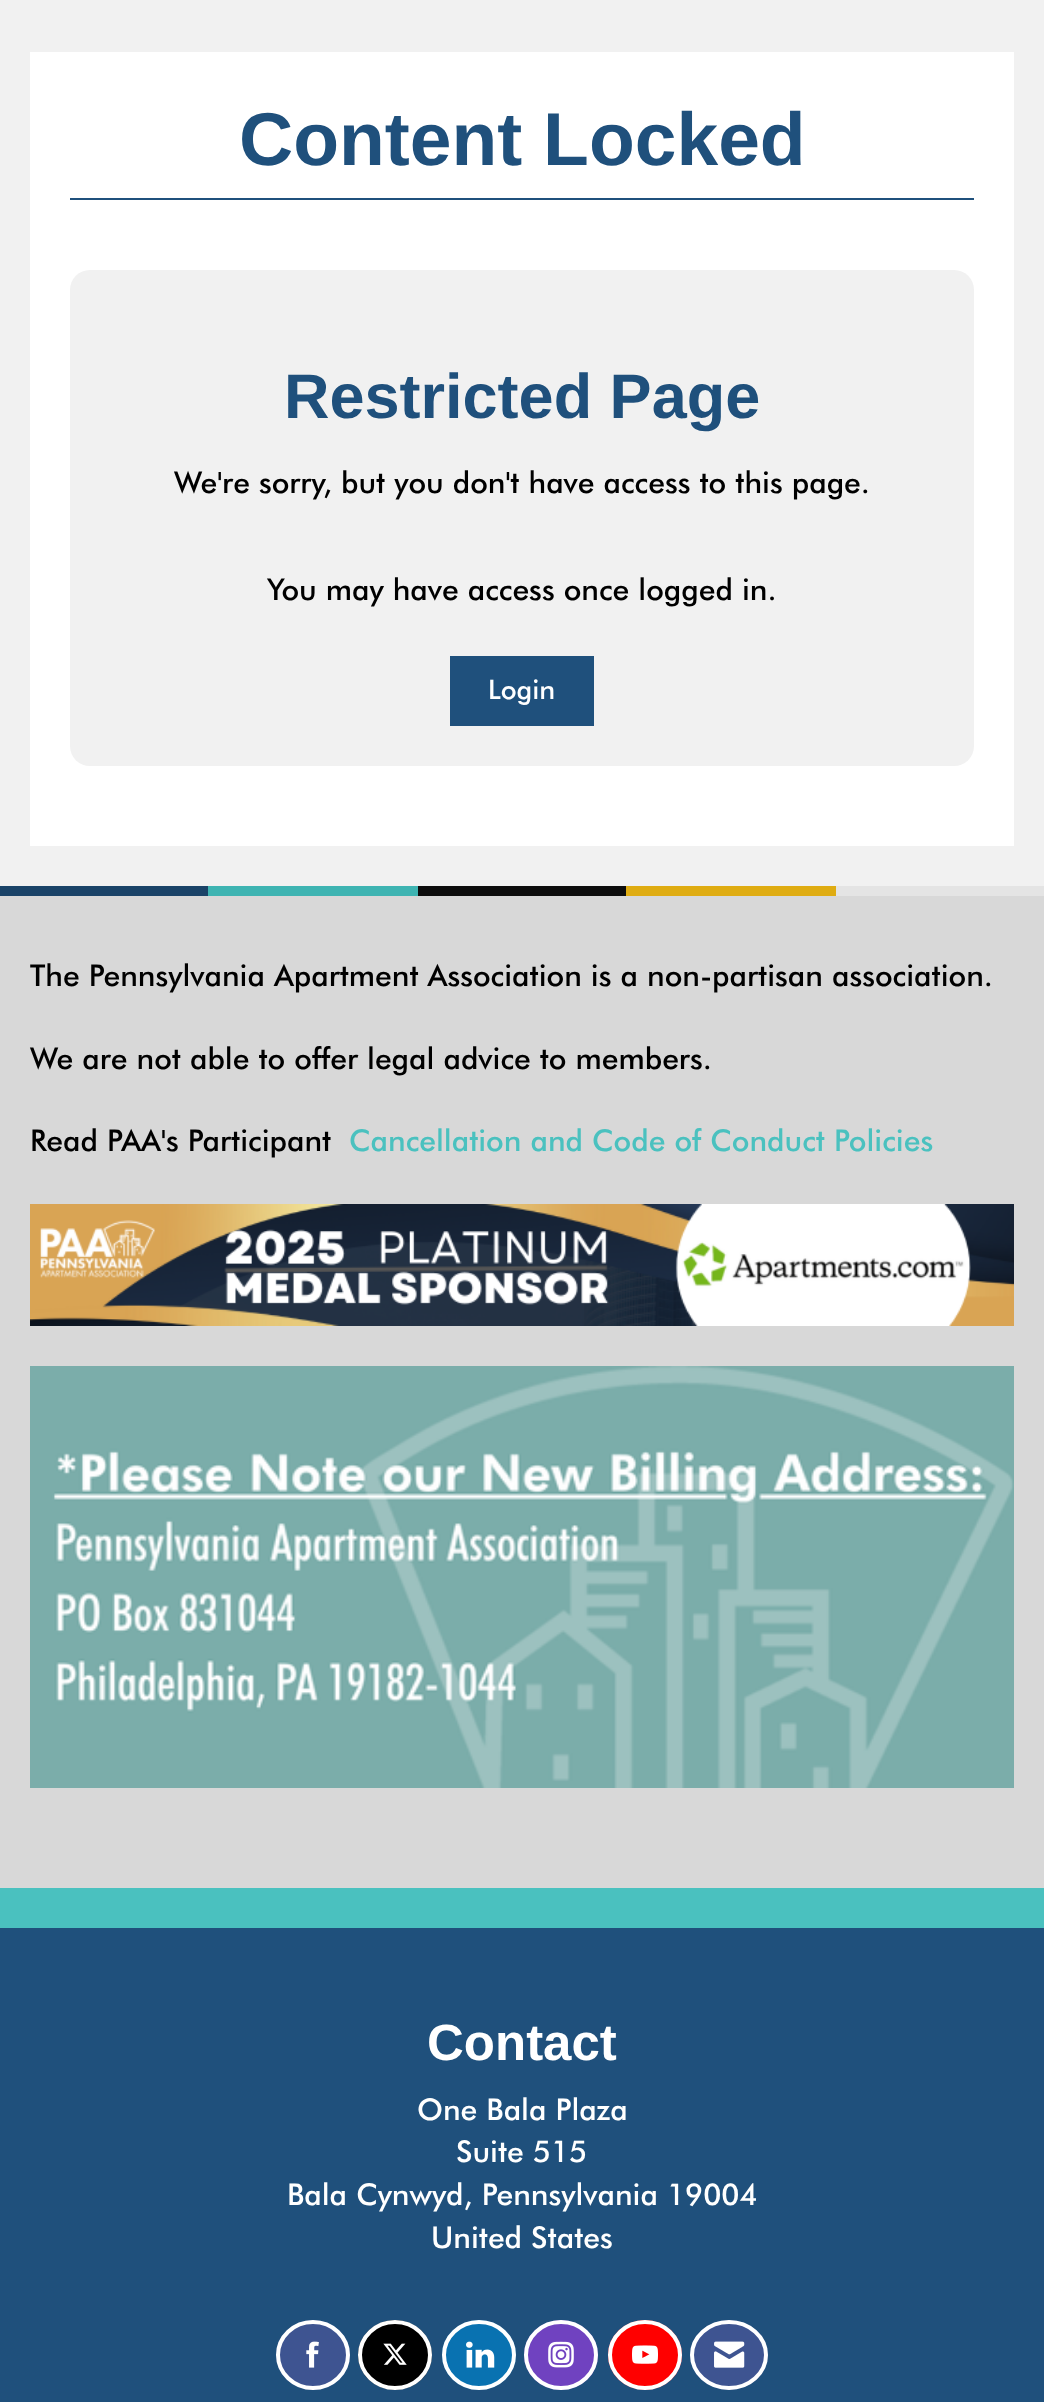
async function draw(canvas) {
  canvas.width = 1044
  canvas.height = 2402
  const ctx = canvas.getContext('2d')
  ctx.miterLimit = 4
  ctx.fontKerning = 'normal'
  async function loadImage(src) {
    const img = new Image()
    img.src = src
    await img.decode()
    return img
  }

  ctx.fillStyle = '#f1f1f1'
  ctx.fillRect(0, 0, 1044, 2402)
  ctx.fillStyle = '#fff'
  ctx.fillRect(30, 52, 984, 794)
  ctx.fillStyle = '#1f507c'
  ctx.fillRect(70, 198, 904, 2)
  ctx.font = 'bold 75px Liberation Sans'
  ctx.fillText('Content Locked', 239, 165)
  ctx.fillStyle = '#f1f1f1'
  ctx.beginPath()
  ctx.roundRect(70, 270, 904, 496, 20)
  ctx.fill()
  ctx.font = 'bold 63px Liberation Sans'
  ctx.fillStyle = '#1f507c'
  ctx.fillText('Restricted Page', 284, 418)
  ctx.font = '500 30px Futura'
  ctx.fillStyle = '#000'
  ctx.fillText('We\'re sorry, but you don\'t have access to this page.', 174, 493)
  ctx.fillText('You may have access once logged in.', 267, 600)
  ctx.fillStyle = '#1f507c'
  ctx.fillRect(450, 656, 144, 70)
  ctx.font = '500 27px Futura'
  ctx.fillStyle = '#fff'
  ctx.fillText('Login', 488, 699)
  ctx.fillStyle = '#1a4368'
  ctx.fillRect(0, 886, 208, 10)
  ctx.fillStyle = '#3eb4b2'
  ctx.fillRect(208, 886, 210, 10)
  ctx.fillStyle = '#0d0d0d'
  ctx.fillRect(418, 886, 208, 10)
  ctx.fillStyle = '#dfac12'
  ctx.fillRect(626, 886, 210, 10)
  ctx.fillStyle = '#e4e4e4'
  ctx.fillRect(836, 886, 208, 10)
  ctx.fillStyle = '#d8d8d8'
  ctx.fillRect(0, 896, 1044, 992)
  ctx.font = '500 30px Futura'
  ctx.fillStyle = '#000'
  ctx.fillText('The Pennsylvania Apartment Association is a non-partisan association.', 30, 986)
  ctx.fillText('We are not able to offer legal advice to members.', 30, 1069)
  ctx.fillText('Read PAA\'s Participant', 30, 1151)
  ctx.fillStyle = '#4ac1bf'
  ctx.fillText('Cancellation and Code of Conduct Policies', 349, 1151)
  ctx.drawImage(await loadImage('image0.png'), 30, 1204, 984, 122)
  ctx.drawImage(await loadImage('image1.png'), 30, 1366, 984, 422)
  ctx.fillRect(0, 1888, 1044, 40)
  ctx.fillStyle = '#1f507c'
  ctx.fillRect(0, 1928, 1044, 474)
  ctx.font = 'bold 51px Liberation Sans'
  ctx.fillStyle = '#fff'
  ctx.fillText('Contact', 427, 2060)
  ctx.font = '500 30px Futura'
  ctx.fillText('One Bala Plaza', 417, 2120)
  ctx.fillText('Suite 515', 456, 2162)
  ctx.fillText('Bala Cynwyd, Pennsylvania 19004', 287, 2205)
  ctx.fillText('United States', 431, 2248)
  ctx.fillStyle = '#3e5491'
  ctx.beginPath()
  ctx.ellipse(313, 2355, 37, 35, 0, 0, 2 * Math.PI)
  ctx.fill()
  ctx.beginPath()
  ctx.moveTo(313, 2322)
  ctx.bezierCurveTo(332.5, 2322, 348, 2337, 348, 2355)
  ctx.bezierCurveTo(348, 2373, 332.5, 2388, 313, 2388)
  ctx.bezierCurveTo(293.5, 2388, 278, 2373, 278, 2355)
  ctx.bezierCurveTo(278, 2337, 293.5, 2322, 313, 2322)
  ctx.closePath()
  ctx.strokeStyle = '#fff'
  ctx.lineWidth = 4
  ctx.stroke()
  ctx.drawImage(await loadImage('image2.png'), 306, 2341, 13, 27)
  ctx.fillStyle = '#000'
  ctx.beginPath()
  ctx.ellipse(395, 2355, 37, 35, 0, 0, 2 * Math.PI)
  ctx.fill()
  ctx.beginPath()
  ctx.moveTo(395, 2322)
  ctx.bezierCurveTo(414.5, 2322, 430, 2337, 430, 2355)
  ctx.bezierCurveTo(430, 2373, 414.5, 2388, 395, 2388)
  ctx.bezierCurveTo(375.5, 2388, 360, 2373, 360, 2355)
  ctx.bezierCurveTo(360, 2337, 375.5, 2322, 395, 2322)
  ctx.closePath()
  ctx.stroke()
  ctx.drawImage(await loadImage('image3.png'), 383, 2343, 24, 22)
  ctx.fillStyle = '#0972b1'
  ctx.beginPath()
  ctx.ellipse(479, 2355, 37, 35, 0, 0, 2 * Math.PI)
  ctx.fill()
  ctx.beginPath()
  ctx.moveTo(479, 2322)
  ctx.bezierCurveTo(498.5, 2322, 514, 2337, 514, 2355)
  ctx.bezierCurveTo(514, 2373, 498.5, 2388, 479, 2388)
  ctx.bezierCurveTo(459.5, 2388, 444, 2373, 444, 2355)
  ctx.bezierCurveTo(444, 2337, 459.5, 2322, 479, 2322)
  ctx.closePath()
  ctx.stroke()
  ctx.drawImage(await loadImage('image4.png'), 466, 2341, 29, 27)
  ctx.fillStyle = '#7042c0'
  ctx.beginPath()
  ctx.ellipse(561, 2355, 37, 35, 0, 0, 2 * Math.PI)
  ctx.fill()
  ctx.beginPath()
  ctx.moveTo(561, 2322)
  ctx.bezierCurveTo(580.5, 2322, 596, 2337, 596, 2355)
  ctx.bezierCurveTo(596, 2373, 580.5, 2388, 561, 2388)
  ctx.bezierCurveTo(541.5, 2388, 526, 2373, 526, 2355)
  ctx.bezierCurveTo(526, 2337, 541.5, 2322, 561, 2322)
  ctx.closePath()
  ctx.stroke()
  ctx.drawImage(await loadImage('image5.png'), 548, 2341, 26, 27)
  ctx.fillStyle = '#f00'
  ctx.beginPath()
  ctx.ellipse(645, 2355, 37, 35, 0, 0, 2 * Math.PI)
  ctx.fill()
  ctx.beginPath()
  ctx.moveTo(645, 2322)
  ctx.bezierCurveTo(664.5, 2322, 680, 2337, 680, 2355)
  ctx.bezierCurveTo(680, 2373, 664.5, 2388, 645, 2388)
  ctx.bezierCurveTo(625.5, 2388, 610, 2373, 610, 2355)
  ctx.bezierCurveTo(610, 2337, 625.5, 2322, 645, 2322)
  ctx.closePath()
  ctx.stroke()
  ctx.drawImage(await loadImage('image6.png'), 632, 2345, 26, 19)
  ctx.fillStyle = '#3e5491'
  ctx.beginPath()
  ctx.ellipse(729, 2355, 39, 35, 0, 0, 2 * Math.PI)
  ctx.fill()
  ctx.beginPath()
  ctx.moveTo(729, 2322)
  ctx.bezierCurveTo(749.5, 2322, 766, 2337, 766, 2355)
  ctx.bezierCurveTo(766, 2373, 749.5, 2388, 729, 2388)
  ctx.bezierCurveTo(708.5, 2388, 692, 2373, 692, 2355)
  ctx.bezierCurveTo(692, 2337, 708.5, 2322, 729, 2322)
  ctx.closePath()
  ctx.stroke()
  ctx.drawImage(await loadImage('image7.png'), 714, 2341, 31, 27)
}

draw(document.querySelector('canvas'))
